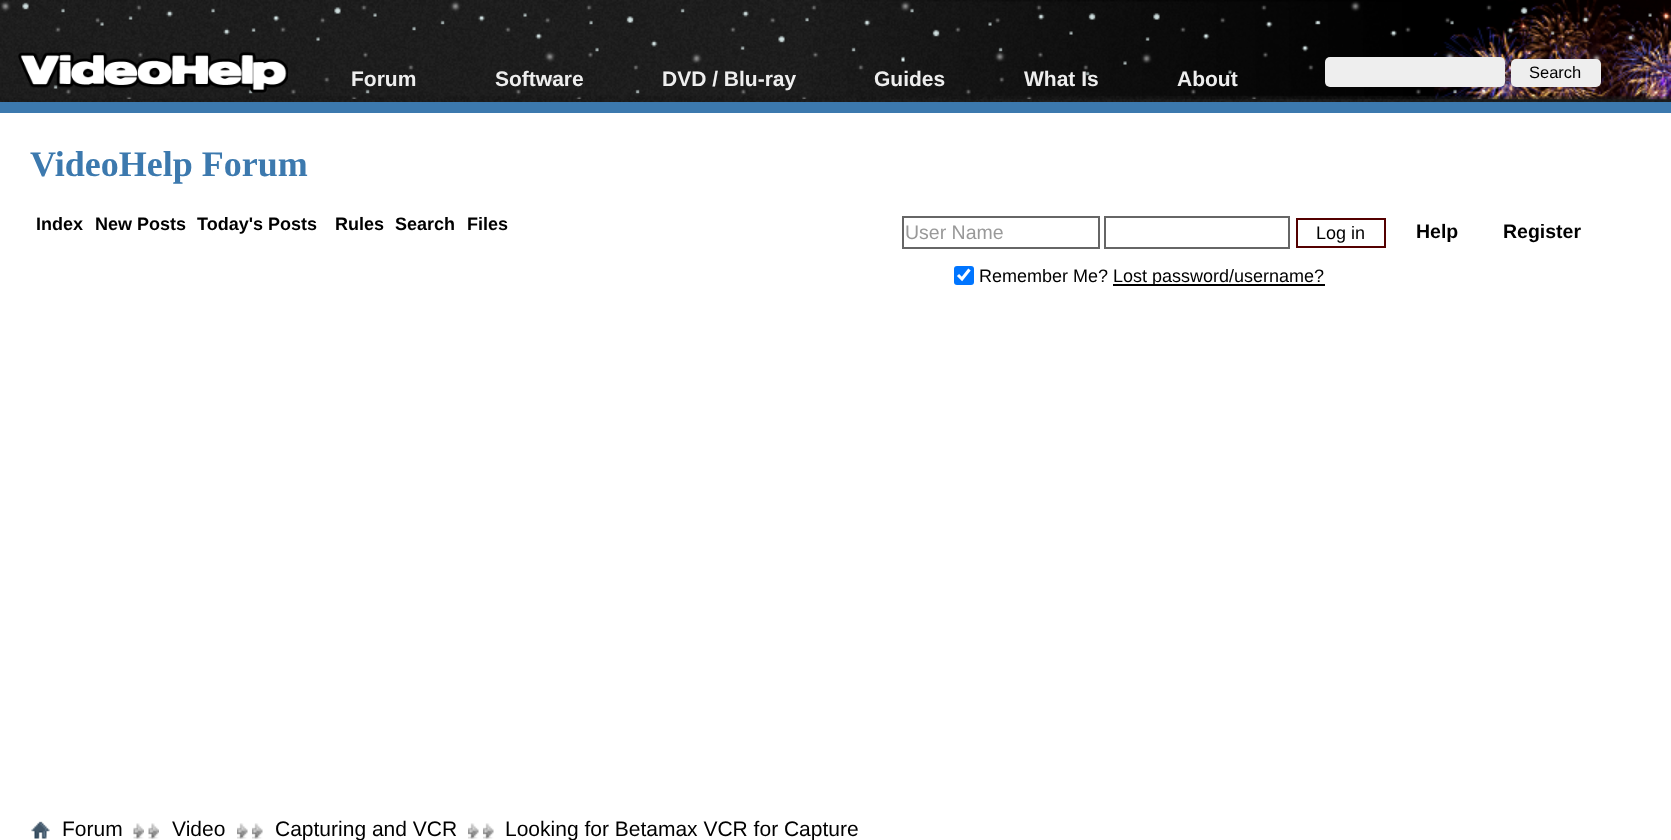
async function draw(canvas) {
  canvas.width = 1671
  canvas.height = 840
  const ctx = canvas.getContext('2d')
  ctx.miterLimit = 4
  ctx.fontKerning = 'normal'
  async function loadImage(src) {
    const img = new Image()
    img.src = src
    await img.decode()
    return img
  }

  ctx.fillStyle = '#222'
  ctx.fillRect(0, 0, 1671, 840)
  ctx.drawImage(await loadImage('image1.png'), 0, 0, 1671, 102)
  ctx.drawImage(await loadImage('image0.png'), 0, 1, 1671, 98)
  ctx.fillStyle = '#3c79ae'
  ctx.fillRect(0, 102, 1671, 11)
  ctx.drawImage(await loadImage('image2.png'), 18, 52, 270, 41)
  ctx.font = 'bold 21px Liberation Sans'
  ctx.fillStyle = '#eee'
  ctx.fillText('Forum', 351, 86)
  ctx.fillText('Software', 495, 86)
  ctx.fillText('DVD / Blu-ray', 662, 86)
  ctx.fillText('Guides', 874, 86)
  ctx.fillText('What Is', 1024, 86)
  ctx.fillText('About', 1177, 86)
  ctx.beginPath()
  ctx.roundRect(1325, 57, 180, 30, 5)
  ctx.fill()
  ctx.beginPath()
  ctx.roundRect(1511, 59, 90, 28, 5)
  ctx.fill()
  ctx.font = '16.5px Liberation Sans'
  ctx.fillStyle = '#000'
  ctx.fillText('Search', 1529, 78)
  ctx.fillStyle = '#fff'
  ctx.fillRect(0, 113, 1671, 727)
  ctx.font = 'bold 36px Liberation Serif'
  ctx.fillStyle = '#3c79ae'
  ctx.fillText('VideoHelp Forum', 30, 176)
  ctx.font = 'bold 18px Liberation Sans'
  ctx.fillStyle = '#000'
  ctx.fillText('Index', 36, 230)
  ctx.fillText('New Posts', 95, 230)
  ctx.fillText('Today\'s Posts', 197, 230)
  ctx.fillText('Rules', 335, 230)
  ctx.fillText('Search', 395, 230)
  ctx.fillText('Files', 467, 230)
  ctx.strokeStyle = '#666'
  ctx.lineWidth = 2
  ctx.strokeRect(903, 217, 196, 31)
  ctx.font = '19.5px Liberation Sans'
  ctx.fillStyle = '#999'
  ctx.fillText('User Name', 905, 239)
  ctx.strokeRect(1105, 217, 184, 31)
  ctx.strokeStyle = '#540000'
  ctx.strokeRect(1297, 219, 88, 28)
  ctx.font = '18px Liberation Sans'
  ctx.fillStyle = '#000'
  ctx.fillText('Log in', 1316, 239)
  ctx.fillStyle = '#0075ff'
  ctx.beginPath()
  ctx.roundRect(954, 266, 20, 19, 3)
  ctx.fill()
  ctx.beginPath()
  ctx.moveTo(958, 275)
  ctx.lineTo(962, 279)
  ctx.lineTo(969.5, 269.5)
  ctx.strokeStyle = '#fff'
  ctx.lineWidth = 3.1
  ctx.stroke()
  ctx.fillStyle = '#000'
  ctx.fillText('Remember Me?', 979, 282)
  ctx.fillRect(1113, 284, 212, 2)
  ctx.fillText('Lost password/username?', 1113, 282)
  ctx.font = 'bold 19.5px Liberation Sans'
  ctx.fillText('Help', 1416, 238)
  ctx.fillText('Register', 1503, 238)
  ctx.drawImage(await loadImage('image3.png'), 31, 821, 19, 18)
  ctx.drawImage(await loadImage('image4.png'), 148, 823, 11, 16)
  ctx.drawImage(await loadImage('image4.png'), 133, 823, 11, 16)
  ctx.font = '21px Liberation Sans'
  ctx.fillText('Forum', 62, 836)
  ctx.drawImage(await loadImage('image5.png'), 252, 823, 11, 16)
  ctx.drawImage(await loadImage('image5.png'), 237, 823, 11, 16)
  ctx.fillText('Video', 172, 836)
  ctx.drawImage(await loadImage('image6.png'), 483, 823, 11, 16)
  ctx.drawImage(await loadImage('image6.png'), 468, 823, 11, 16)
  ctx.fillText('Capturing and VCR', 275, 836)
  ctx.fillText('Looking for Betamax VCR for Capture', 505, 836)
}

draw(document.querySelector('canvas'))
